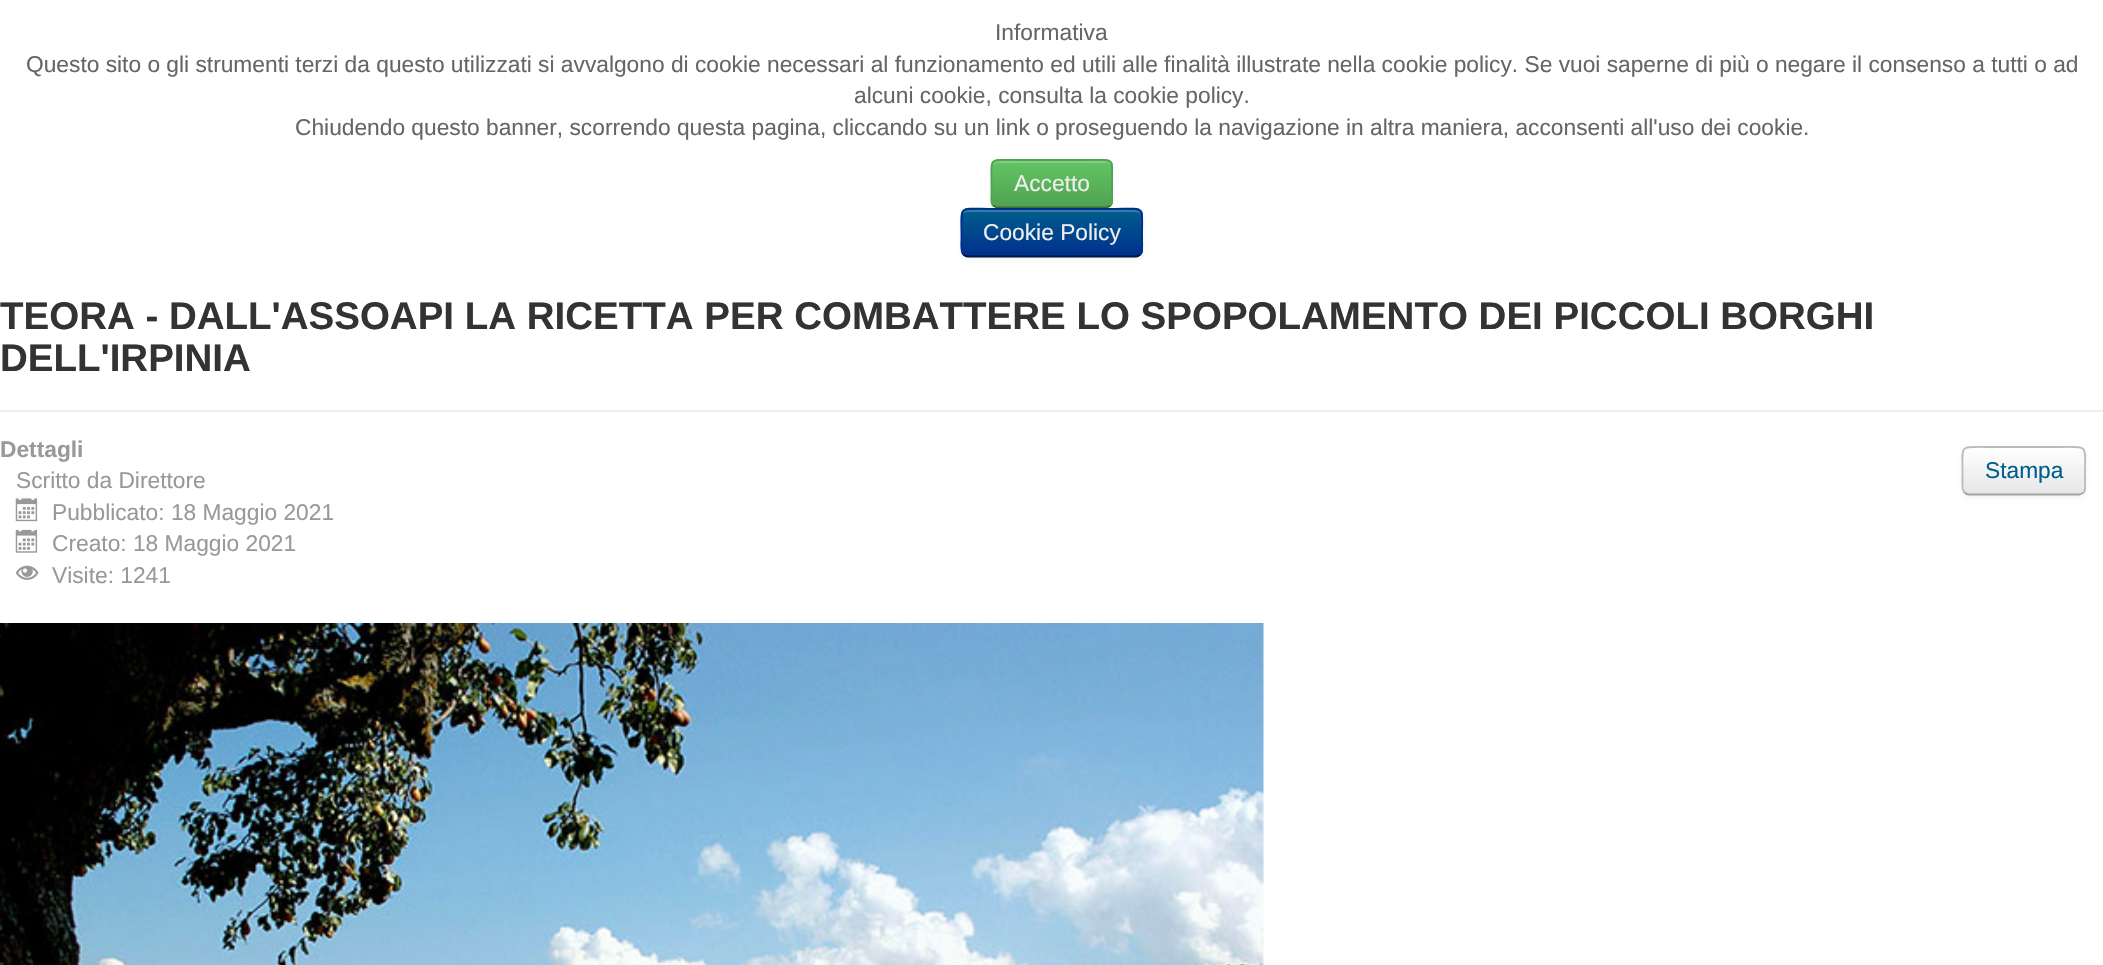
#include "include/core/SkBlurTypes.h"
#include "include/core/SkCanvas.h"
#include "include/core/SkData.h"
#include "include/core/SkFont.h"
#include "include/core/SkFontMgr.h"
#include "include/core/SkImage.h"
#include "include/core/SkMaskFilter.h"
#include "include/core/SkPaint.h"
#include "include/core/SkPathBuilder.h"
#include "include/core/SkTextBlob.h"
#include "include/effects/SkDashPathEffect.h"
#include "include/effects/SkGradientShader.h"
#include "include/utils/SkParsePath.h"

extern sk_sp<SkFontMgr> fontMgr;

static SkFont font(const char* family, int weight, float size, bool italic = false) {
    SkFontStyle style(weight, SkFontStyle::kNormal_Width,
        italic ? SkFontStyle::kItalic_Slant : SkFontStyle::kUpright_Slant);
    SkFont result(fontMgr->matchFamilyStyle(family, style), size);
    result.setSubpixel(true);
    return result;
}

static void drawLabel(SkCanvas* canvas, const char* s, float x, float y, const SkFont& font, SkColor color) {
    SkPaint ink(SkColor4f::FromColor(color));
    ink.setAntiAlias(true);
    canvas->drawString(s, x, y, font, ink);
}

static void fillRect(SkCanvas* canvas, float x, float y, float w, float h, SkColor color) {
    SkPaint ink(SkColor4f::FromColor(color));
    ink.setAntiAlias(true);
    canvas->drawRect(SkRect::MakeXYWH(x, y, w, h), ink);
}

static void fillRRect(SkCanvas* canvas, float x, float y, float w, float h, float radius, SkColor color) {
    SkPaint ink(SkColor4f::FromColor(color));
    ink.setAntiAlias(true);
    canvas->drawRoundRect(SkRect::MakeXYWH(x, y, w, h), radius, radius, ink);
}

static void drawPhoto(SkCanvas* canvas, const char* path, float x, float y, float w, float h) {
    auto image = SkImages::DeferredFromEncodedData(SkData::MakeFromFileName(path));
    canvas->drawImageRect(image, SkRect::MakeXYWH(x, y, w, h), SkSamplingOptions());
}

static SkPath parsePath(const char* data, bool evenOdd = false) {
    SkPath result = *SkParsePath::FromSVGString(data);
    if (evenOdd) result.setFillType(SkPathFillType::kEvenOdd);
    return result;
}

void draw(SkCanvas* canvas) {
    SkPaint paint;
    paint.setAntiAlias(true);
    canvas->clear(0xFFFFFFFF);
    SkFont font1 = font("Liberation Sans", 400, 22.75f);
    drawLabel(canvas, "Informativa", 995, 40, font1, 0xFF666666);
    drawLabel(canvas, "Questo sito o gli strumenti terzi da questo utilizzati si avvalgono di cookie necessari al funzionamento ed utili alle finalità illustrate nella cookie policy. Se vuoi saperne di più o negare il consenso a tutti o ad", 26, 72, font1, 0xFF666666);
    drawLabel(canvas, "alcuni cookie, consulta la cookie policy.", 854, 103, font1, 0xFF666666);
    drawLabel(canvas, "Chiudendo questo banner, scorrendo questa pagina, cliccando su un link o proseguendo la navigazione in altra maniera, acconsenti all'uso dei cookie.", 295, 135, font1, 0xFF666666);
    paint.setColor(0x0D000000);
    paint.setMaskFilter(SkMaskFilter::MakeBlur(kNormal_SkBlurStyle, 2));
    canvas->drawRoundRect(SkRect::MakeXYWH(991, 161, 122, 49), 7, 7, paint);
    paint.setMaskFilter(nullptr);
    fillRRect(canvas, 991, 159, 122, 49, 7, 0xFF5BB75B);
    canvas->save();
    canvas->clipPath(parsePath("M998 159H1106C1110 159 1113 162 1113 166V201C1113 205 1110 208 1106 208H998C994 208 991 205 991 201V166C991 162 994 159 998 159Z"), true);
    {
        const SkColor colors[] = {0xFF62C462, 0xFF51A351};
        const float stops[] = {0, 1};
        const SkPoint ends[] = {{1052, 161}, {1052, 207}};
        paint.setShader(SkGradientShader::MakeLinear(ends, colors, stops, 2, SkTileMode::kClamp));
        paint.setAlpha(255);
    }
    canvas->drawRect(SkRect::MakeXYWH(991, 161, 122, 46), paint);
    canvas->restore();
    paint.setShader(nullptr);
    paint.setColor(0x33FFFFFF);
    canvas->drawPath(parsePath("M998 163H1106C1109 163 1111 165 1111 168V166C1111 163 1109 161 1106 161H997C994 161 992 163 992 166V168C992 165 995 163 998 163Z"), paint);
    paint.setStroke(true);
    paint.setStrokeWidth(1.8f);
    paint.setColor(0xFF387038);
    canvas->drawPath(parsePath("M1110.5 205.5C1109 206.5 1107.5 207.5 1106 207.5H997.5C996 207.5 994.5 206.5 993 205.5"), paint);
    paint.setColor(0xFF51A351);
    canvas->drawPath(parsePath("M993 205.5C990.5 203 991.5 198.5 991.5 195.5V184C991.5 157 988 160 1015.5 160H1088C1115.5 160 1112 157 1112 184V195.5C1112 198.5 1113 203 1110.5 205.5"), paint);
    drawLabel(canvas, "Accetto", 1014, 191, font1, 0xFFEEEEEE);
    paint.setStroke(false);
    paint.setColor(0x0D000000);
    paint.setMaskFilter(SkMaskFilter::MakeBlur(kNormal_SkBlurStyle, 2));
    canvas->drawRoundRect(SkRect::MakeXYWH(961, 210, 182, 49), 7, 7, paint);
    paint.setMaskFilter(nullptr);
    fillRRect(canvas, 961, 208, 182, 49, 7, 0xFF004B8D);
    canvas->save();
    canvas->clipPath(parsePath("M968 208H1136C1140 208 1143 211 1143 215V250C1143 254 1140 257 1136 257H968C964 257 961 254 961 250V215C961 211 964 208 968 208Z"), true);
    {
        const SkColor colors[] = {0xFF005E8D, 0xFF002F8D};
        const float stops[] = {0, 1};
        const SkPoint ends[] = {{1052, 210}, {1052, 256}};
        paint.setShader(SkGradientShader::MakeLinear(ends, colors, stops, 2, SkTileMode::kClamp));
        paint.setAlpha(255);
    }
    canvas->drawRect(SkRect::MakeXYWH(961, 210, 182, 46), paint);
    canvas->restore();
    paint.setShader(nullptr);
    paint.setColor(0x33FFFFFF);
    canvas->drawPath(parsePath("M968 212H1136C1139 212 1141 214 1141 217V215C1141 212 1139 210 1136 210H968C966 210 963 212 963 214C964 213 966 212 968 212Z"), paint);
    paint.setStroke(true);
    paint.setColor(0xFF001641);
    canvas->drawPath(parsePath("M1140 254.5C1139 255.5 1137.5 256.5 1136 256.5H968C966 256.5 964.5 255.5 963.5 254.5"), paint);
    paint.setColor(0xFF002F8D);
    canvas->drawPath(parsePath("M963.5 254.5C960 251 961.5 242.5 961.5 238.5C961.5 202.5 956.5 209 996 209H1108C1147 209 1142 202.5 1142 238.5C1142 242.5 1143.5 251 1140 254.5"), paint);
    drawLabel(canvas, "Cookie Policy", 983, 240, font1, 0xFFEEEEEE);
    fillRect(canvas, 0, 410, 2103, 2, 0xFFEEEEEE);
    SkFont font2 = font("Liberation Sans", 700, 38.5f);
    drawLabel(canvas, "TEORA - DALL'ASSOAPI LA RICETTA PER COMBATTERE LO SPOPOLAMENTO DEI PICCOLI BORGHI", 0, 329, font2, 0xFF333333);
    drawLabel(canvas, "DELL'IRPINIA", 0, 371, font2, 0xFF333333);
    SkFont font3 = font("Liberation Sans", 700, 22.75f);
    drawLabel(canvas, "Dettagli", 0, 457, font3, 0xFF999999);
    drawLabel(canvas, "Scritto da Direttore", 16, 488, font1, 0xFF999999);
    drawPhoto(canvas, "assets/img1.png", 15, 498, 23, 24);
    drawLabel(canvas, "Pubblicato: 18 Maggio 2021", 52, 520, font1, 0xFF999999);
    drawPhoto(canvas, "assets/img2.png", 15, 529, 23, 24);
    drawLabel(canvas, "Creato: 18 Maggio 2021", 52, 551, font1, 0xFF999999);
    drawPhoto(canvas, "assets/img3.png", 15, 565, 24, 15);
    drawLabel(canvas, "Visite: 1241", 52, 583, font1, 0xFF999999);
    paint.setStroke(false);
    paint.setColor(0x0D000000);
    paint.setMaskFilter(SkMaskFilter::MakeBlur(kNormal_SkBlurStyle, 2));
    canvas->drawRoundRect(SkRect::MakeXYWH(1962, 448, 124, 49), 7, 7, paint);
    paint.setMaskFilter(nullptr);
    fillRRect(canvas, 1962, 446, 124, 49, 7, 0xFFF5F5F5);
    canvas->save();
    canvas->clipPath(parsePath("M1969 446H2079C2083 446 2086 449 2086 453V488C2086 492 2083 495 2079 495H1969C1965 495 1962 492 1962 488V453C1962 449 1965 446 1969 446Z"), true);
    {
        const SkColor colors[] = {0xFFFFFFFF, 0xFFE6E6E6};
        const float stops[] = {0, 1};
        const SkPoint ends[] = {{2024, 448}, {2024, 494}};
        paint.setShader(SkGradientShader::MakeLinear(ends, colors, stops, 2, SkTileMode::kClamp));
        paint.setAlpha(255);
    }
    canvas->drawRect(SkRect::MakeXYWH(1962, 448, 124, 46), paint);
    canvas->restore();
    paint.setStroke(true);
    paint.setShader(nullptr);
    paint.setColor(0xFFA2A2A2);
    canvas->drawPath(parsePath("M2083.5 492.5C2082 493.5 2080.5 494.5 2079 494.5H1969C1967 494.5 1965.5 493.5 1964.5 492.5"), paint);
    paint.setColor(0xFFBBBBBB);
    canvas->drawPath(parsePath("M1964.5 492.5C1962 490 1962.5 485.5 1962.5 482.5V471C1962.5 444 1959 447 1987 447H2060.5C2088.5 447 2085 444 2085 471V482.5C2085 485.5 2086 490 2083.5 492.5"), paint);
    drawLabel(canvas, "Stampa", 1985, 478, font1, 0xFF005E8D);
    drawPhoto(canvas, "assets/img4.png", 0, 623, 1264, 342);
}
